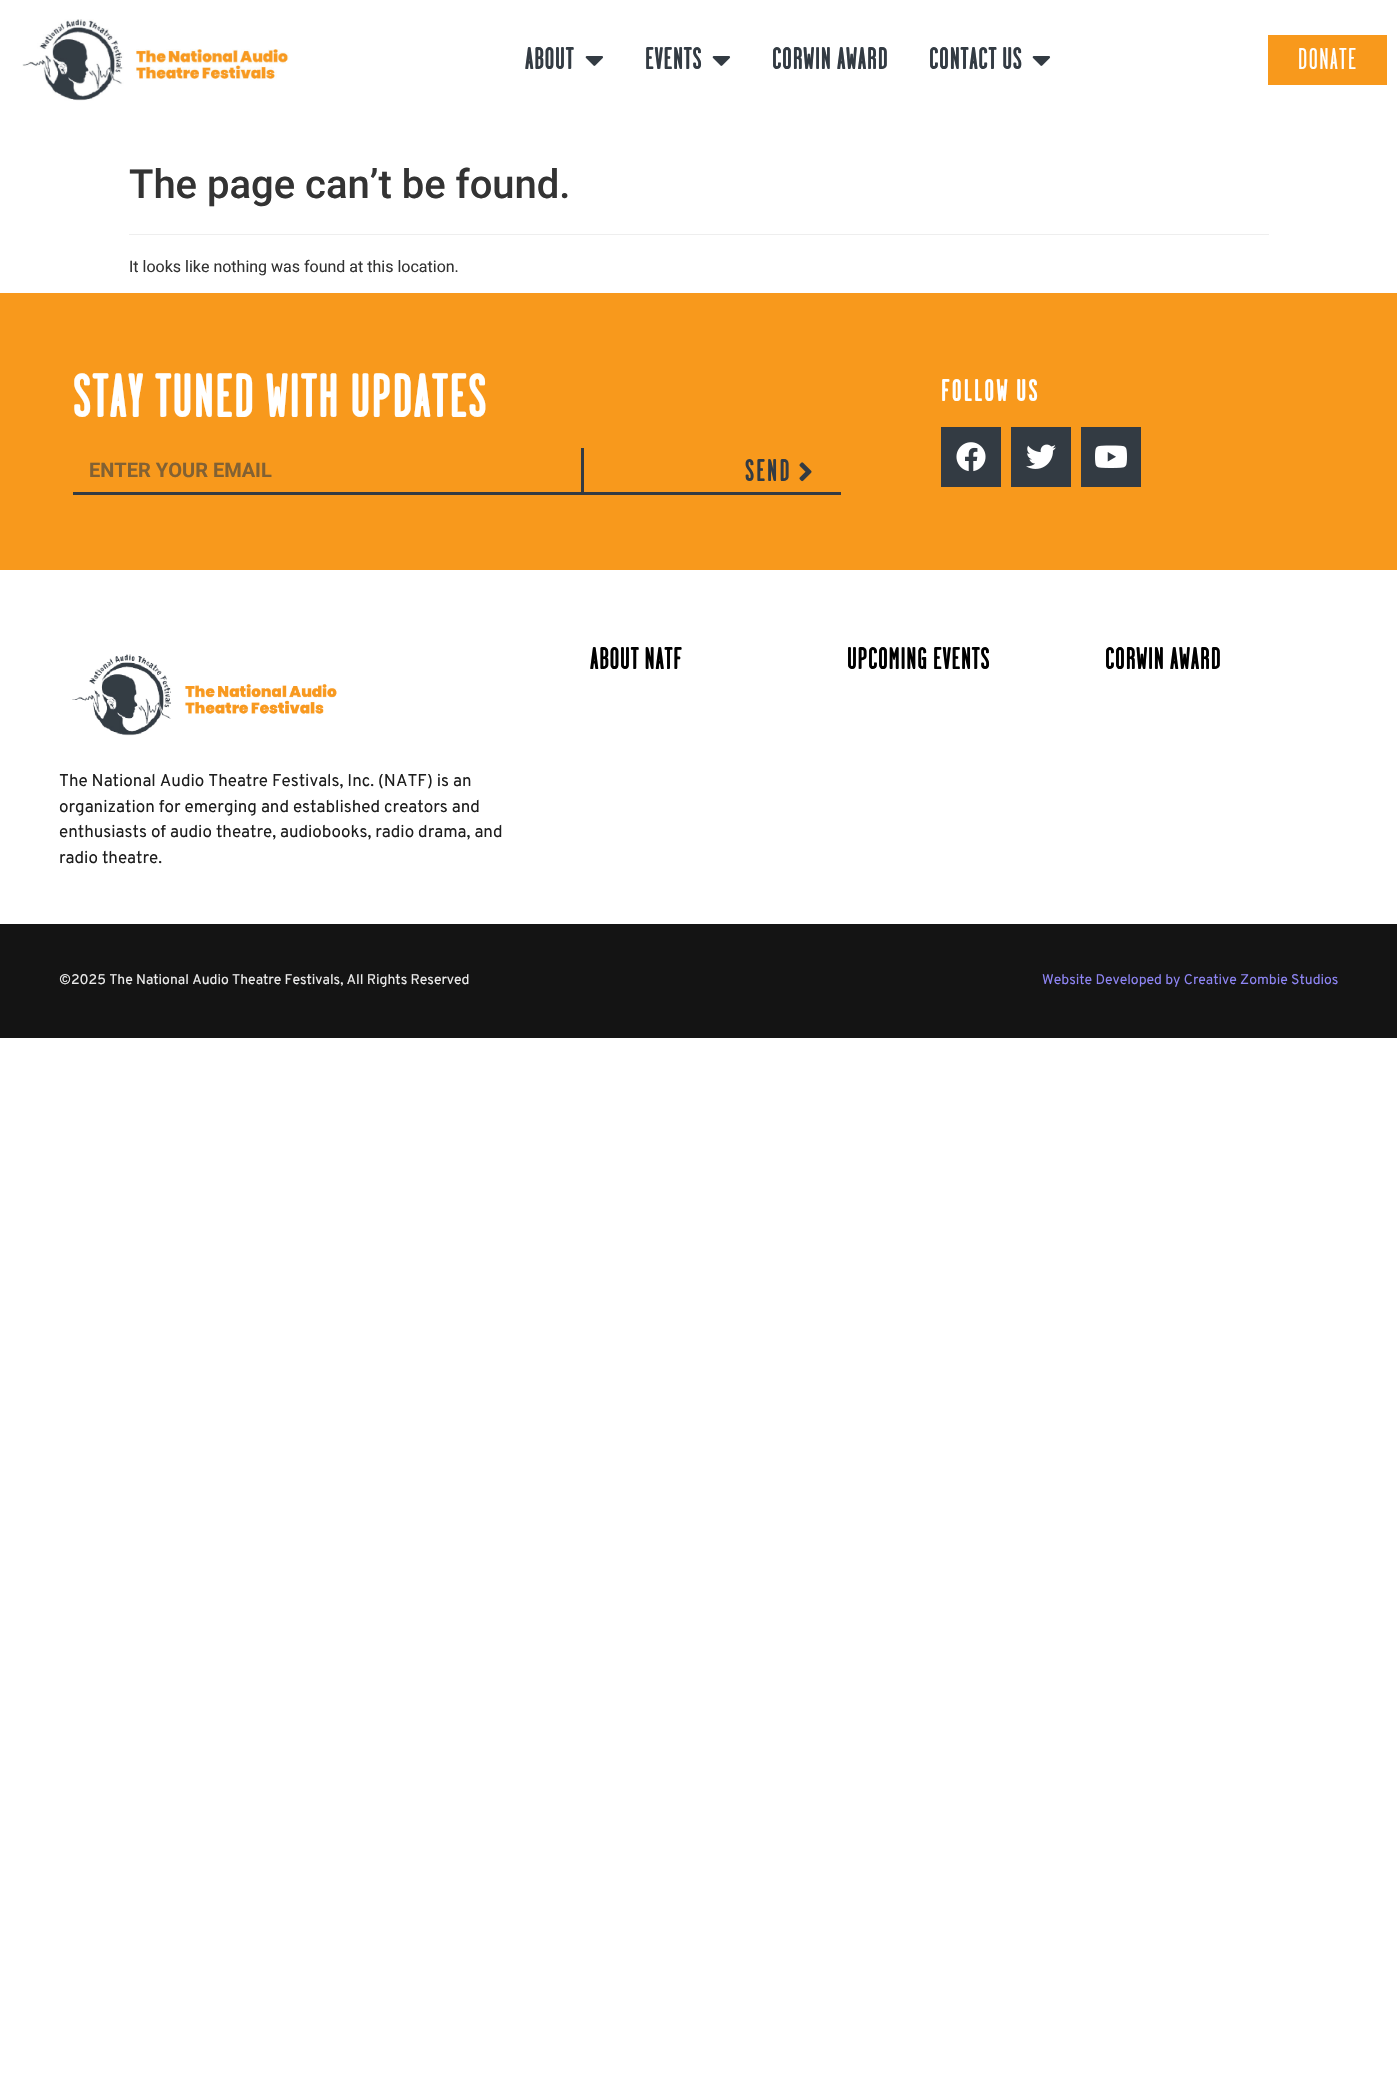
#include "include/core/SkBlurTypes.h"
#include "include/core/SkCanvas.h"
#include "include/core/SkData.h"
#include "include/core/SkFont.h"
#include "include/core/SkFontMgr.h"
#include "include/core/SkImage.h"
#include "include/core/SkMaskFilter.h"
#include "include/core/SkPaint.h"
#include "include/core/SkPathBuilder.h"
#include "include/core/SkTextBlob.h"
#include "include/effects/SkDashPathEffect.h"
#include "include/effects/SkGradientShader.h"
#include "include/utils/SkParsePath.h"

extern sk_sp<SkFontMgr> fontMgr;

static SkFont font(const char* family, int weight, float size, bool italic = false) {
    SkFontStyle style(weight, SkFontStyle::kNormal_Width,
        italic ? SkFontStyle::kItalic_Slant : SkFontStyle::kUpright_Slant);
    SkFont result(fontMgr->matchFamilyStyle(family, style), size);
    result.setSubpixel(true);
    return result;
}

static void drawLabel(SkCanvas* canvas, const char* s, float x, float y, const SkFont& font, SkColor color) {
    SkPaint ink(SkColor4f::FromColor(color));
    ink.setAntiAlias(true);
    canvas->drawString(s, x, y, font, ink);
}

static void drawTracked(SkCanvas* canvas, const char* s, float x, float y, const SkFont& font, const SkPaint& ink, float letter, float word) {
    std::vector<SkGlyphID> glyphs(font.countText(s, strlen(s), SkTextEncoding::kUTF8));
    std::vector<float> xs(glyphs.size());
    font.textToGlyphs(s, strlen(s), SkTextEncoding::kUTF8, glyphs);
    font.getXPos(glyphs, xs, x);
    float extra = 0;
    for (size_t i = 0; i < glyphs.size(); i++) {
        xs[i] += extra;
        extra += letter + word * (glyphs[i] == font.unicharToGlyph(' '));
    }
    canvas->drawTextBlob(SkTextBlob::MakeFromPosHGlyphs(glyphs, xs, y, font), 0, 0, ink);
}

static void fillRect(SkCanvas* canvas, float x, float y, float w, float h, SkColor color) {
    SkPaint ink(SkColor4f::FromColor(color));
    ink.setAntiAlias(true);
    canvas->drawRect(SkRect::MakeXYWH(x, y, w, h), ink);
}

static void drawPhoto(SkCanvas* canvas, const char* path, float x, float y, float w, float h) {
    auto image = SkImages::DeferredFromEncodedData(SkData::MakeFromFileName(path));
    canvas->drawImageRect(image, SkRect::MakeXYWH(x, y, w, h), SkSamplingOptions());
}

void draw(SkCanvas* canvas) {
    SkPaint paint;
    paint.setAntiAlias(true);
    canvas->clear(0xFFFFFFFF);
    drawPhoto(canvas, "assets/img1.png", 22, 19, 267, 82);
    SkFont font1 = font("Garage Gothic", 700, 30);
    paint.setColor(0xFF333B43);
    drawTracked(canvas, "ABOUT", 525, 69, font1, paint, 1.5f, 0);
    drawPhoto(canvas, "assets/img2.png", 585, 56, 19, 10);
    drawTracked(canvas, "EVENTS", 645, 69, font1, paint, 1.5f, 0);
    drawPhoto(canvas, "assets/img2.png", 712, 56, 19, 10);
    drawTracked(canvas, "CORWIN AWARD", 772, 69, font1, paint, 1.5f, 0);
    drawTracked(canvas, "CONTACT US", 929, 69, font1, paint, 1.5f, 0);
    drawPhoto(canvas, "assets/img2.png", 1032, 56, 19, 10);
    fillRect(canvas, 1268, 35, 119, 50, 0xFFF8991C);
    SkFont font2 = font("Garage Gothic", 400, 30);
    paint.setColor(0xFFFFFFFF);
    drawTracked(canvas, "DONATE", 1298, 69, font2, paint, 1.5f, 0);
    fillRect(canvas, 129, 234, 1140, 1, 0xFFEEEEEE);
    SkFont font3 = font("Roboto", 500, 40);
    drawLabel(canvas, "The page can’t be found.", 129, 198, font3, 0xFF333333);
    SkFont font4 = font("Roboto", 400, 16);
    drawLabel(canvas, "It looks like nothing was found at this location.", 129, 272, font4, 0xFF333333);
    fillRect(canvas, 0, 293, 1397, 277, 0xFFF8991C);
    SkFont font5 = font("Garage Gothic", 700, 60);
    drawTracked(canvas, "STAY TUNED WITH UPDATES", 73, 417, font5, paint, 3, 0);
    fillRect(canvas, 73, 492, 768, 3, 0xFF333B43);
    fillRect(canvas, 581, 448, 3, 44, 0xFF333B43);
    SkFont font6 = font("Roboto", 700, 20);
    drawLabel(canvas, "ENTER YOUR EMAIL", 89, 477, font6, 0xFF826133);
    paint.setColor(0xFF333B43);
    drawTracked(canvas, "SEND", 745, 481, font1, paint, 3, 0);
    drawPhoto(canvas, "assets/img3.png", 799, 462, 13, 20);
    paint.setColor(0xFFFFFFFF);
    drawTracked(canvas, "FOLLOW US", 941, 401, font1, paint, 3, 0);
    fillRect(canvas, 941, 427, 60, 60, 0xFF333B43);
    drawPhoto(canvas, "assets/img4.png", 956, 442, 30, 30);
    fillRect(canvas, 1011, 427, 60, 60, 0xFF333B43);
    drawPhoto(canvas, "assets/img5.png", 1026, 444, 30, 25);
    fillRect(canvas, 1081, 427, 60, 60, 0xFF333B43);
    drawPhoto(canvas, "assets/img6.png", 1095, 445, 32, 23);
    paint.setColor(0xFF000000);
    drawTracked(canvas, "ABOUT NATF", 590, 669, font1, paint, 1.5f, 0);
    drawTracked(canvas, "UPCOMING EVENTS", 847, 669, font1, paint, 1.5f, 0);
    drawTracked(canvas, "CORWIN AWARD", 1105, 669, font1, paint, 1.5f, 0);
    drawPhoto(canvas, "assets/img7.png", 72, 654, 265, 82);
    SkFont font7 = font("Overpass", 400, 17);
    drawLabel(canvas, "The National Audio Theatre Festivals, Inc. (NATF) is an", 59, 786, font7, 0xFF1E1E1E);
    drawLabel(canvas, "organization for emerging and established creators and", 59, 812, font7, 0xFF1E1E1E);
    drawLabel(canvas, "enthusiasts of audio theatre, audiobooks, radio drama, and", 59, 837, font7, 0xFF1E1E1E);
    drawLabel(canvas, "radio theatre.", 59, 863, font7, 0xFF1E1E1E);
    fillRect(canvas, 0, 924, 1397, 114, 0xFF141414);
    SkFont font8 = font("Overpass", 400, 14);
    drawLabel(canvas, "©2025 The National Audio Theatre Festivals, All Rights Reserved", 59, 984, font8, 0xFFECECEC);
    drawLabel(canvas, "Website Developed by Creative Zombie Studios", 1042, 984, font8, 0xFF8D84F3);
}
